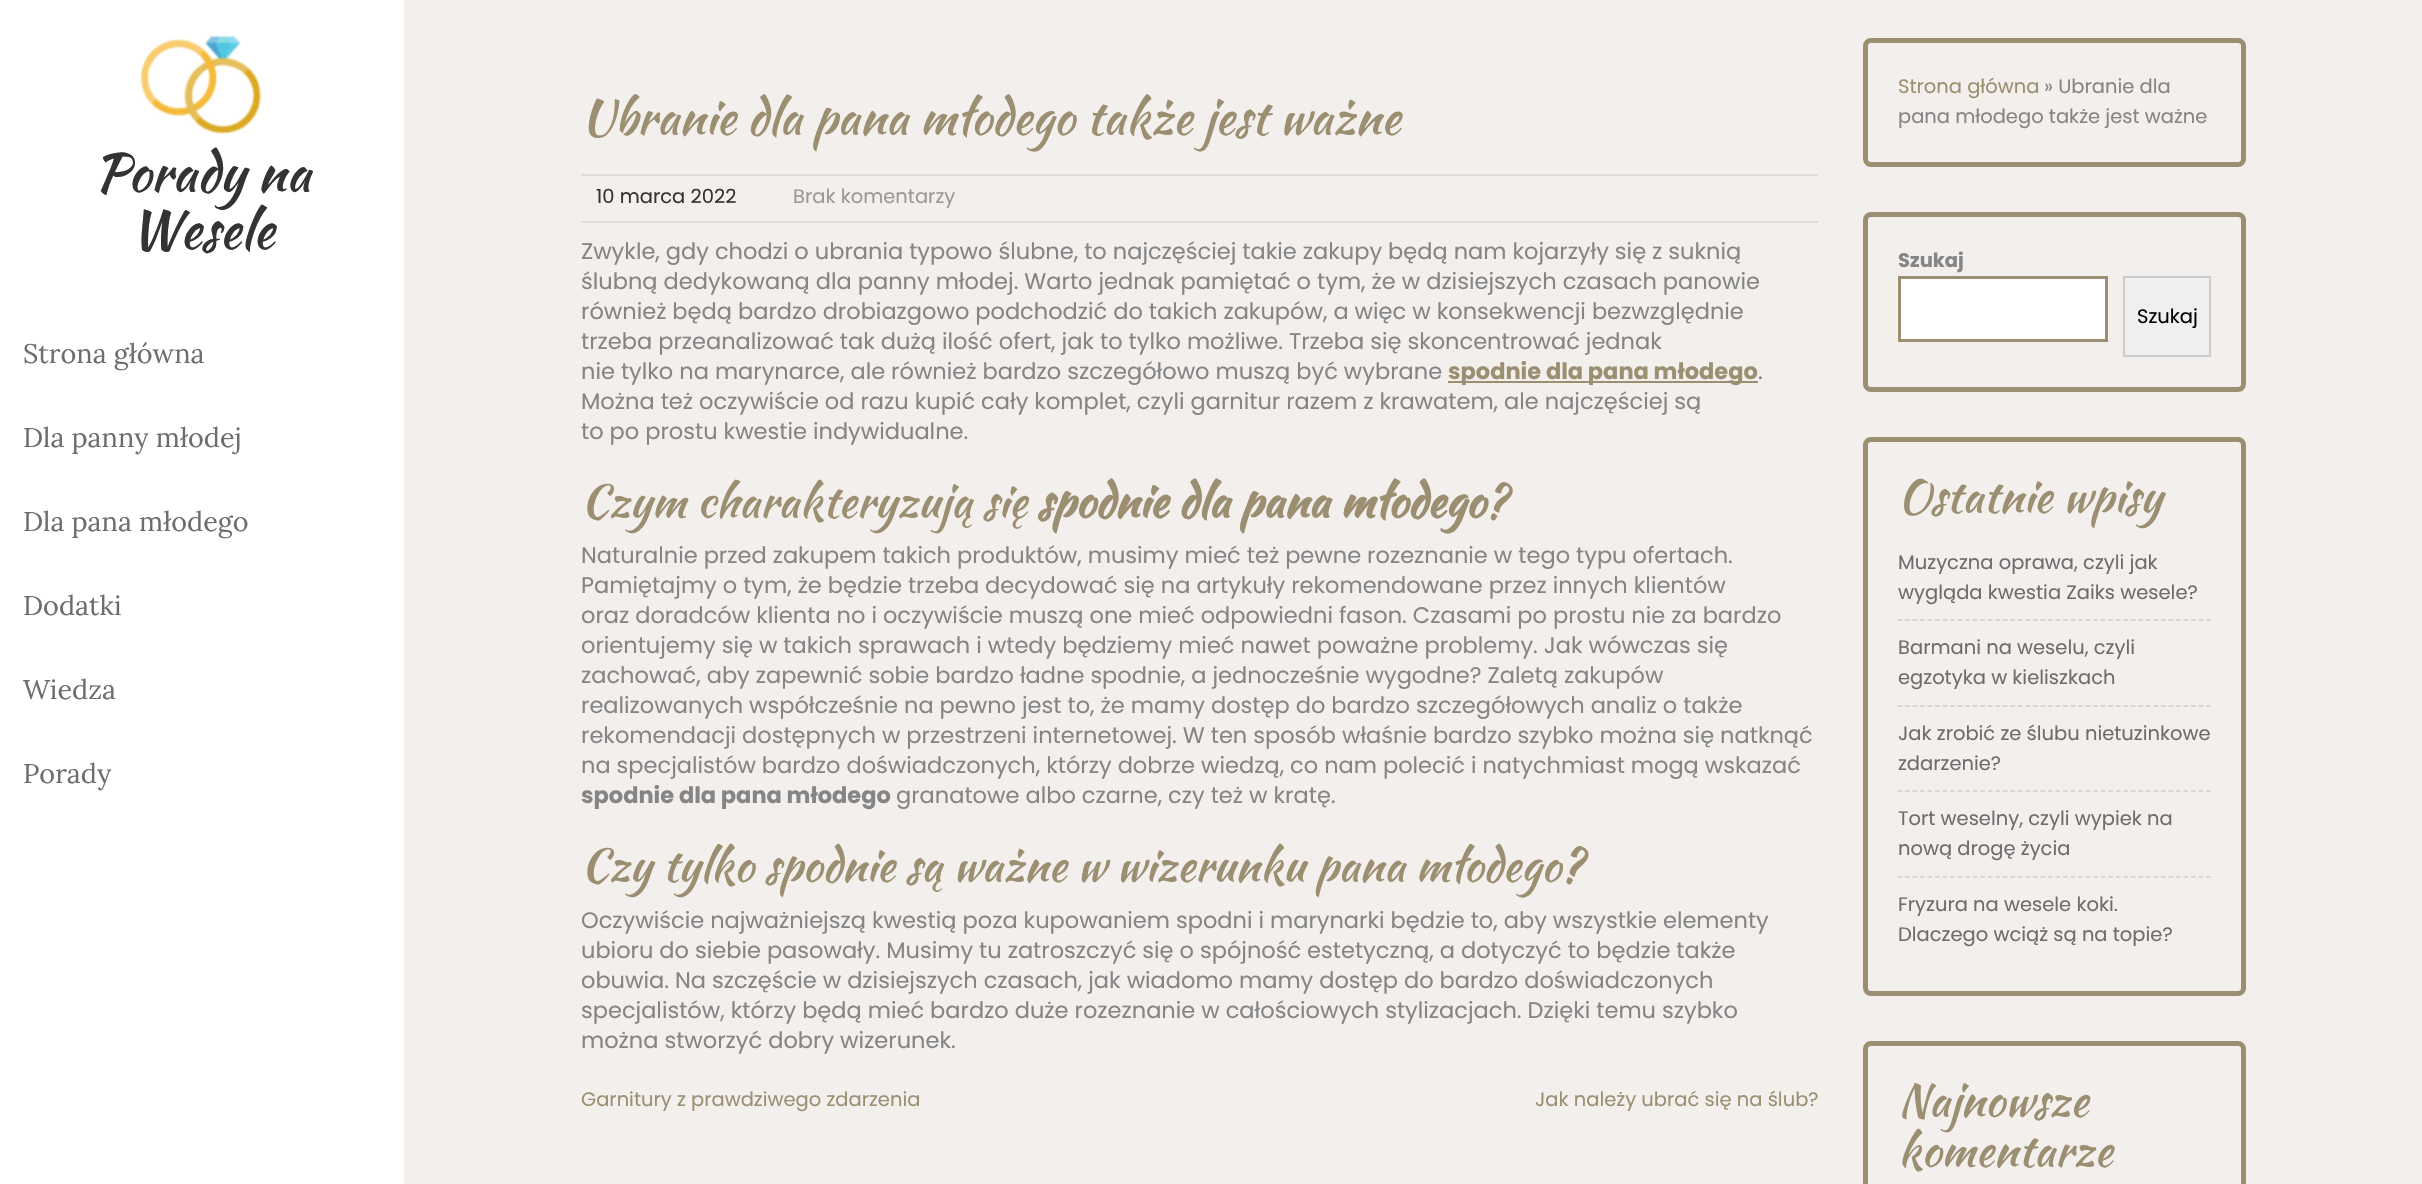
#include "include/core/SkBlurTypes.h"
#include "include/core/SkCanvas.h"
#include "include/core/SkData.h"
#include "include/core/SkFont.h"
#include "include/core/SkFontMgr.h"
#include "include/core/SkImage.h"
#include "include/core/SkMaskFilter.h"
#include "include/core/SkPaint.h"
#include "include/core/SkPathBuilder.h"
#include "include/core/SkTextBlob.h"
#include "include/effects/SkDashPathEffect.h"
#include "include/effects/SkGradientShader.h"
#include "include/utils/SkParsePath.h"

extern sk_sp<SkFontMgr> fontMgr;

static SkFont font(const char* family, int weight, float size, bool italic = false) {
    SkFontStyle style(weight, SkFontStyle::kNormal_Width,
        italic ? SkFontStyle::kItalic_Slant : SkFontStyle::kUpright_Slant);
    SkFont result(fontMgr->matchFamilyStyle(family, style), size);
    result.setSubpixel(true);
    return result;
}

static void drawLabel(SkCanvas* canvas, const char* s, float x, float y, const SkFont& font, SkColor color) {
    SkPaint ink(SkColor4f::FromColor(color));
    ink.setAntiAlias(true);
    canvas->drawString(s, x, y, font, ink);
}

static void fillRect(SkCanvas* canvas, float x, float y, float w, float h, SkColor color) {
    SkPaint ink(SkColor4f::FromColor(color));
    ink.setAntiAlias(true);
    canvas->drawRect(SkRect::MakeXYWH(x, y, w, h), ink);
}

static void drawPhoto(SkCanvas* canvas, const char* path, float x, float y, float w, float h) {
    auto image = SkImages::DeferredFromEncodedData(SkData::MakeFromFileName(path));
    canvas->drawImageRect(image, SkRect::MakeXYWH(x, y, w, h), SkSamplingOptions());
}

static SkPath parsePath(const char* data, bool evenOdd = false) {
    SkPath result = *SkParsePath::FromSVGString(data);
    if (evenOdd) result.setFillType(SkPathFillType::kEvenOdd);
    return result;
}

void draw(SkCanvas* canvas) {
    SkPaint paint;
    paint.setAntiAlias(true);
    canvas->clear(0xFFF3EFED);
    fillRect(canvas, 0, 0, 404, 1184, 0xFFFFFFFF);
    drawPhoto(canvas, "assets/img1.png", 140, 35, 122, 99);
    SkFont font1 = font("Kaushan Script", 400, 52.5f);
    drawLabel(canvas, "Porady na", 94, 191, font1, 0xFF333333);
    drawLabel(canvas, "Wesele", 130, 248, font1, 0xFF333333);
    SkFont font2 = font("Lora", 400, 27);
    drawLabel(canvas, "Strona główna", 23, 363, font2, 0xFF6D6D6D);
    drawLabel(canvas, "Dla panny młodej", 23, 447, font2, 0xFF6D6D6D);
    drawLabel(canvas, "Dla pana młodego", 23, 531, font2, 0xFF6D6D6D);
    drawLabel(canvas, "Dodatki", 23, 615, font2, 0xFF6D6D6D);
    drawLabel(canvas, "Wiedza", 23, 699, font2, 0xFF6D6D6D);
    drawLabel(canvas, "Porady", 23, 783, font2, 0xFF6D6D6D);
    SkFont font3 = font("Kaushan Script", 400, 48);
    drawLabel(canvas, "Ubranie dla pana młodego także jest ważne", 581, 134, font3, 0xFF9B8E71);
    fillRect(canvas, 581, 174, 1237, 2, 0xFFDDDDDD);
    fillRect(canvas, 581, 221, 1237, 2, 0xFFDDDDDD);
    SkFont font4 = font("Poppins", 400, 19.5f);
    drawLabel(canvas, "10 marca 2022", 596, 203, font4, 0xFF333333);
    drawLabel(canvas, "Brak komentarzy", 793, 203, font4, 0xFF999999);
    SkFont font5 = font("Poppins", 400, 22.5f);
    drawLabel(canvas, "Zwykle, gdy chodzi o ubrania typowo ślubne, to najczęściej takie zakupy będą nam kojarzyły się z suknią", 581, 259, font5, 0xFF858585);
    drawLabel(canvas, "ślubną dedykowaną dla panny młodej. Warto jednak pamiętać o tym, że w dzisiejszych czasach panowie", 581, 289, font5, 0xFF858585);
    drawLabel(canvas, "również będą bardzo drobiazgowo podchodzić do takich zakupów, a więc w konsekwencji bezwzględnie", 581, 319, font5, 0xFF858585);
    drawLabel(canvas, "trzeba przeanalizować tak dużą ilość ofert, jak to tylko możliwe. Trzeba się skoncentrować jednak", 581, 349, font5, 0xFF858585);
    drawLabel(canvas, "nie tylko na marynarce, ale również bardzo szczegółowo muszą być wybrane", 581, 379, font5, 0xFF858585);
    fillRect(canvas, 1448, 381, 310, 2, 0xFF9B8E71);
    SkFont font6 = font("Poppins", 700, 22.5f);
    drawLabel(canvas, "spodnie dla pana młodego", 1448, 379, font6, 0xFF9B8E71);
    drawLabel(canvas, ".", 1758, 379, font5, 0xFF858585);
    drawLabel(canvas, "Można też oczywiście od razu kupić cały komplet, czyli garnitur razem z krawatem, ale najczęściej są", 581, 409, font5, 0xFF858585);
    drawLabel(canvas, "to po prostu kwestie indywidualne.", 581, 439, font5, 0xFF858585);
    SkFont font7 = font("Kaushan Script", 400, 45);
    drawLabel(canvas, "Czym charakteryzują się", 581, 517, font7, 0xFF9B8E71);
    SkFont font8 = font("Kaushan Script", 700, 45);
    drawLabel(canvas, "spodnie dla pana młodego", 1037, 517, font8, 0xFF9B8E71);
    drawLabel(canvas, "?", 1485, 517, font7, 0xFF9B8E71);
    drawLabel(canvas, "Naturalnie przed zakupem takich produktów, musimy mieć też pewne rozeznanie w tego typu ofertach.", 581, 563, font5, 0xFF858585);
    drawLabel(canvas, "Pamiętajmy o tym, że będzie trzeba decydować się na artykuły rekomendowane przez innych klientów", 581, 593, font5, 0xFF858585);
    drawLabel(canvas, "oraz doradców klienta no i oczywiście muszą one mieć odpowiedni fason. Czasami po prostu nie za bardzo", 581, 623, font5, 0xFF858585);
    drawLabel(canvas, "orientujemy się w takich sprawach i wtedy będziemy mieć nawet poważne problemy. Jak wówczas się", 581, 653, font5, 0xFF858585);
    drawLabel(canvas, "zachować, aby zapewnić sobie bardzo ładne spodnie, a jednocześnie wygodne? Zaletą zakupów", 581, 683, font5, 0xFF858585);
    drawLabel(canvas, "realizowanych współcześnie na pewno jest to, że mamy dostęp do bardzo szczegółowych analiz o także", 581, 713, font5, 0xFF858585);
    drawLabel(canvas, "rekomendacji dostępnych w przestrzeni internetowej. W ten sposób właśnie bardzo szybko można się natknąć", 581, 743, font5, 0xFF858585);
    drawLabel(canvas, "na specjalistów bardzo doświadczonych, którzy dobrze wiedzą, co nam polecić i natychmiast mogą wskazać", 581, 773, font5, 0xFF858585);
    drawLabel(canvas, "spodnie dla pana młodego", 581, 803, font6, 0xFF858585);
    drawLabel(canvas, "granatowe albo czarne, czy też w kratę.", 896, 803, font5, 0xFF858585);
    drawLabel(canvas, "Czy tylko spodnie są ważne w wizerunku pana młodego?", 581, 881, font7, 0xFF9B8E71);
    drawLabel(canvas, "Oczywiście najważniejszą kwestią poza kupowaniem spodni i marynarki będzie to, aby wszystkie elementy", 581, 928, font5, 0xFF858585);
    drawLabel(canvas, "ubioru do siebie pasowały. Musimy tu zatroszczyć się o spójność estetyczną, a dotyczyć to będzie także", 581, 958, font5, 0xFF858585);
    drawLabel(canvas, "obuwia. Na szczęście w dzisiejszych czasach, jak wiadomo mamy dostęp do bardzo doświadczonych", 581, 988, font5, 0xFF858585);
    drawLabel(canvas, "specjalistów, którzy będą mieć bardzo duże rozeznanie w całościowych stylizacjach. Dzięki temu szybko", 581, 1018, font5, 0xFF858585);
    drawLabel(canvas, "można stworzyć dobry wizerunek.", 581, 1048, font5, 0xFF858585);
    drawLabel(canvas, "Garnitury z prawdziwego zdarzenia", 581, 1106, font4, 0xFF9B8E71);
    drawLabel(canvas, "Jak należy ubrać się na ślub?", 1535, 1106, font4, 0xFF9B8E71);
    paint.setStroke(true);
    paint.setStrokeWidth(5);
    paint.setColor(0xFF9B8E71);
    canvas->drawRoundRect(SkRect::MakeXYWH(1865.5f, 40.5f, 378, 124), 5.5f, 5.5f, paint);
    drawLabel(canvas, "Strona główna", 1898, 93, font4, 0xFF9B8E71);
    drawLabel(canvas, "» Ubranie dla", 2044, 93, font4, 0xFF858585);
    drawLabel(canvas, "pana młodego także jest ważne", 1898, 123, font4, 0xFF858585);
    canvas->drawRoundRect(SkRect::MakeXYWH(1865.5f, 214.5f, 378, 175), 5.5f, 5.5f, paint);
    SkFont font9 = font("Poppins", 700, 19.5f);
    drawLabel(canvas, "Szukaj", 1898, 267, font9, 0xFF858585);
    paint.setStroke(false);
    paint.setColor(0xFFFFFFFF);
    canvas->drawRect(SkRect::MakeXYWH(1899.5f, 277.5f, 207, 63), paint);
    paint.setStroke(true);
    paint.setStrokeWidth(3);
    paint.setColor(0xFF9B8E71);
    canvas->drawRect(SkRect::MakeXYWH(1899.5f, 277.5f, 207, 63), paint);
    paint.setStroke(false);
    paint.setColor(0xFFEFEFEF);
    canvas->drawRect(SkRect::MakeXYWH(2124, 277, 86, 79), paint);
    paint.setStroke(true);
    paint.setStrokeWidth(2);
    paint.setColor(0xFFCCCCCC);
    canvas->drawRect(SkRect::MakeXYWH(2124, 277, 86, 79), paint);
    drawLabel(canvas, "Szukaj", 2137, 323, font4, 0xFF000000);
    paint.setStrokeWidth(5);
    paint.setColor(0xFF9B8E71);
    canvas->drawRoundRect(SkRect::MakeXYWH(1865.5f, 439.5f, 378, 554), 5.5f, 5.5f, paint);
    drawLabel(canvas, "Ostatnie wpisy", 1898, 512, font7, 0xFF9B8E71);
    paint.setStrokeWidth(1.5f);
    paint.setColor(0xFFD0CFCF);
    paint.setPathEffect(SkDashPathEffect::Make({{4.5f, 3.03f}}, 0));
    canvas->drawPath(parsePath("M1897.5 620H2211"), paint);
    paint.setPathEffect(nullptr);
    drawLabel(canvas, "Muzyczna oprawa, czyli jak", 1898, 569, font4, 0xFF6D6D6D);
    drawLabel(canvas, "wygląda kwestia Zaiks wesele?", 1898, 599, font4, 0xFF6D6D6D);
    paint.setPathEffect(SkDashPathEffect::Make({{4.5f, 3.03f}}, 0));
    canvas->drawPath(parsePath("M1897.5 706H2211"), paint);
    paint.setPathEffect(nullptr);
    drawLabel(canvas, "Barmani na weselu, czyli", 1898, 654, font4, 0xFF6D6D6D);
    drawLabel(canvas, "egzotyka w kieliszkach", 1898, 684, font4, 0xFF6D6D6D);
    paint.setPathEffect(SkDashPathEffect::Make({{4.5f, 3.03f}}, 0));
    canvas->drawPath(parsePath("M1897.5 791H2211"), paint);
    paint.setPathEffect(nullptr);
    drawLabel(canvas, "Jak zrobić ze ślubu nietuzinkowe", 1898, 740, font4, 0xFF6D6D6D);
    drawLabel(canvas, "zdarzenie?", 1898, 770, font4, 0xFF6D6D6D);
    paint.setPathEffect(SkDashPathEffect::Make({{4.5f, 3.03f}}, 0));
    canvas->drawPath(parsePath("M1897.5 877H2211"), paint);
    paint.setPathEffect(nullptr);
    drawLabel(canvas, "Tort weselny, czyli wypiek na", 1898, 825, font4, 0xFF6D6D6D);
    drawLabel(canvas, "nową drogę życia", 1898, 855, font4, 0xFF6D6D6D);
    drawLabel(canvas, "Fryzura na wesele koki.", 1898, 911, font4, 0xFF6D6D6D);
    drawLabel(canvas, "Dlaczego wciąż są na topie?", 1898, 941, font4, 0xFF6D6D6D);
    paint.setStrokeWidth(5);
    paint.setColor(0xFF9B8E71);
    canvas->drawRoundRect(SkRect::MakeXYWH(1865.5f, 1043.5f, 378, 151), 5.5f, 5.5f, paint);
    drawLabel(canvas, "Najnowsze", 1898, 1116, font7, 0xFF9B8E71);
    drawLabel(canvas, "komentarze", 1898, 1166, font7, 0xFF9B8E71);
}
